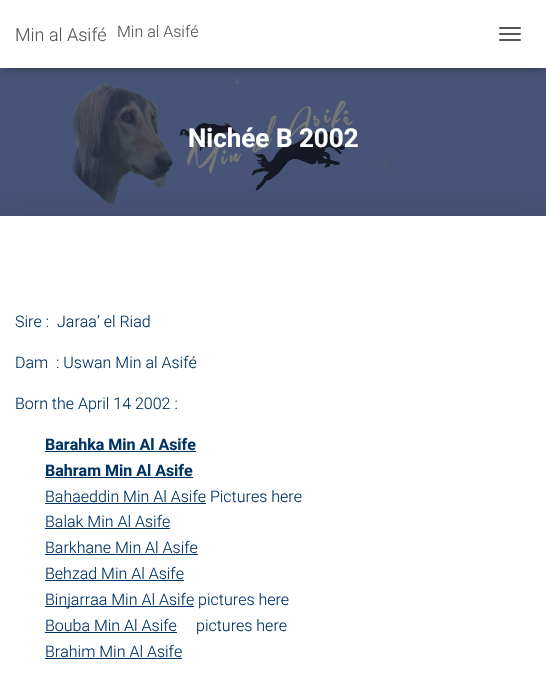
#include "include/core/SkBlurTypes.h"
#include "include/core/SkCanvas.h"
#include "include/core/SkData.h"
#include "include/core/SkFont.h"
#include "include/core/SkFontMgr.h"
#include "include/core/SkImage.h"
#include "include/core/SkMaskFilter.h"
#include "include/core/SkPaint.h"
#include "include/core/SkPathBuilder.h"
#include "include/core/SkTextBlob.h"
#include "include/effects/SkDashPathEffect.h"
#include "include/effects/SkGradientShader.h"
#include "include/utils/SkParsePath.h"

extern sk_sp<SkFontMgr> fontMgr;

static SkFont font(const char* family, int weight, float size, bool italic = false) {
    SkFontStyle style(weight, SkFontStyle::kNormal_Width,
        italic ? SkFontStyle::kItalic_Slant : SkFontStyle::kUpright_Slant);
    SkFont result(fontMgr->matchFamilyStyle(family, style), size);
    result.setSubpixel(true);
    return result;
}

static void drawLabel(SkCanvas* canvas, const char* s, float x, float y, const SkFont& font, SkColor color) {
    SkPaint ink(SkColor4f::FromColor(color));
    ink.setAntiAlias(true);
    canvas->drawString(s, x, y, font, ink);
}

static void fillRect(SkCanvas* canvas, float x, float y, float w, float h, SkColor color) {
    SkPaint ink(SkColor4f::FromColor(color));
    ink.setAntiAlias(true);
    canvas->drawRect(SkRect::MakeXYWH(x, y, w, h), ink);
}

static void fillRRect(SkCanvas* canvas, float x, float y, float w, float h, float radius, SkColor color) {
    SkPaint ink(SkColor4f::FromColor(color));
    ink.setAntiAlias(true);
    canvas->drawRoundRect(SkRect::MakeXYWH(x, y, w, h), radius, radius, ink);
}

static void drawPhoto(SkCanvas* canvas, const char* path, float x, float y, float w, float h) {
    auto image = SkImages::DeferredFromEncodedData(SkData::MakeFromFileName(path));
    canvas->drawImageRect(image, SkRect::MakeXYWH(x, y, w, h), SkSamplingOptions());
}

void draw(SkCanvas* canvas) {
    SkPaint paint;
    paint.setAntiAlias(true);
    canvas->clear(0xFFFFFFFF);
    drawPhoto(canvas, "assets/img1.png", 0, 68, 546, 148);
    paint.setColor(0x1A000000);
    paint.setMaskFilter(SkMaskFilter::MakeBlur(kNormal_SkBlurStyle, 2.5f));
    canvas->drawRect(SkRect::MakeXYWH(2, 6, 542, 64), paint);
    paint.setMaskFilter(nullptr);
    paint.setColor(0x1F000000);
    paint.setMaskFilter(SkMaskFilter::MakeBlur(kNormal_SkBlurStyle, 5));
    canvas->drawRect(SkRect::MakeXYWH(0, 1, 546, 68), paint);
    paint.setMaskFilter(nullptr);
    paint.setColor(0x6B000000);
    paint.setMaskFilter(SkMaskFilter::MakeBlur(kNormal_SkBlurStyle, 5));
    canvas->drawRect(SkRect::MakeXYWH(6, 7, 534, 56), paint);
    paint.setMaskFilter(nullptr);
    fillRect(canvas, 0, 0, 546, 68, 0xFFFFFFFF);
    SkFont font1 = font("Roboto", 300, 18);
    drawLabel(canvas, "Min al Asifé", 15, 41, font1, 0xFF555555);
    SkFont font2 = font("Roboto", 300, 16);
    drawLabel(canvas, "Min al Asifé", 117, 37, font2, 0xFF555555);
    fillRRect(canvas, 499, 27, 22, 2, 1, 0xFF555555);
    fillRRect(canvas, 499, 33, 22, 2, 1, 0xFF555555);
    fillRRect(canvas, 499, 39, 22, 2, 1, 0xFF555555);
    SkFont font3 = font("Roboto", 700, 26);
    drawLabel(canvas, "Nichée B 2002", 188, 147, font3, 0xFFFFFFFF);
    paint.setColor(0x1F000000);
    paint.setMaskFilter(SkMaskFilter::MakeBlur(kNormal_SkBlurStyle, 15));
    canvas->drawRect(SkRect::MakeXYWH(-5, 217, 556, 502), paint);
    paint.setMaskFilter(nullptr);
    fillRect(canvas, 0, 216, 546, 458, 0xFFFFFFFF);
    drawLabel(canvas, "Sire :", 15, 327, font2, 0xFF003366);
    drawLabel(canvas, "Jaraa’ el Riad", 57, 327, font2, 0xFF003366);
    drawLabel(canvas, "Dam  : Uswan Min al Asifé", 15, 368, font2, 0xFF003366);
    drawLabel(canvas, "Born the April 14 2002 :", 15, 409, font2, 0xFF003366);
    SkFont font4 = font("Roboto", 700, 16);
    drawLabel(canvas, "Barahka Min Al Asife", 45, 450, font4, 0xFF003366);
    fillRect(canvas, 45, 451, 151, 1, 0xFF003366);
    drawLabel(canvas, "Bahram Min Al Asife", 45, 476, font4, 0xFF003366);
    fillRect(canvas, 45, 477, 148, 1, 0xFF003366);
    drawLabel(canvas, "Bahaeddin Min Al Asife Pictures here", 45, 502, font2, 0xFF003366);
    fillRect(canvas, 45, 503, 161, 1, 0xFF003366);
    drawLabel(canvas, "Balak Min Al Asife", 45, 527, font2, 0xFF003366);
    fillRect(canvas, 45, 528, 125, 1, 0xFF003366);
    drawLabel(canvas, "Barkhane Min Al Asife", 45, 553, font2, 0xFF003366);
    fillRect(canvas, 45, 554, 153, 1, 0xFF003366);
    drawLabel(canvas, "Behzad Min Al Asife", 45, 579, font2, 0xFF003366);
    fillRect(canvas, 45, 580, 139, 1, 0xFF003366);
    fillRect(canvas, 45, 606, 149, 1, 0xFF003366);
    drawLabel(canvas, "Binjarraa Min Al Asife pictures here", 45, 605, font2, 0xFF003366);
    drawLabel(canvas, "Bouba Min Al Asife", 45, 631, font2, 0xFF003366);
    fillRect(canvas, 45, 632, 132, 1, 0xFF003366);
    drawLabel(canvas, "pictures here", 196, 631, font2, 0xFF003366);
    drawLabel(canvas, "Brahim Min Al Asife", 45, 657, font2, 0xFF003366);
    fillRect(canvas, 45, 658, 137, 1, 0xFF003366);
}
